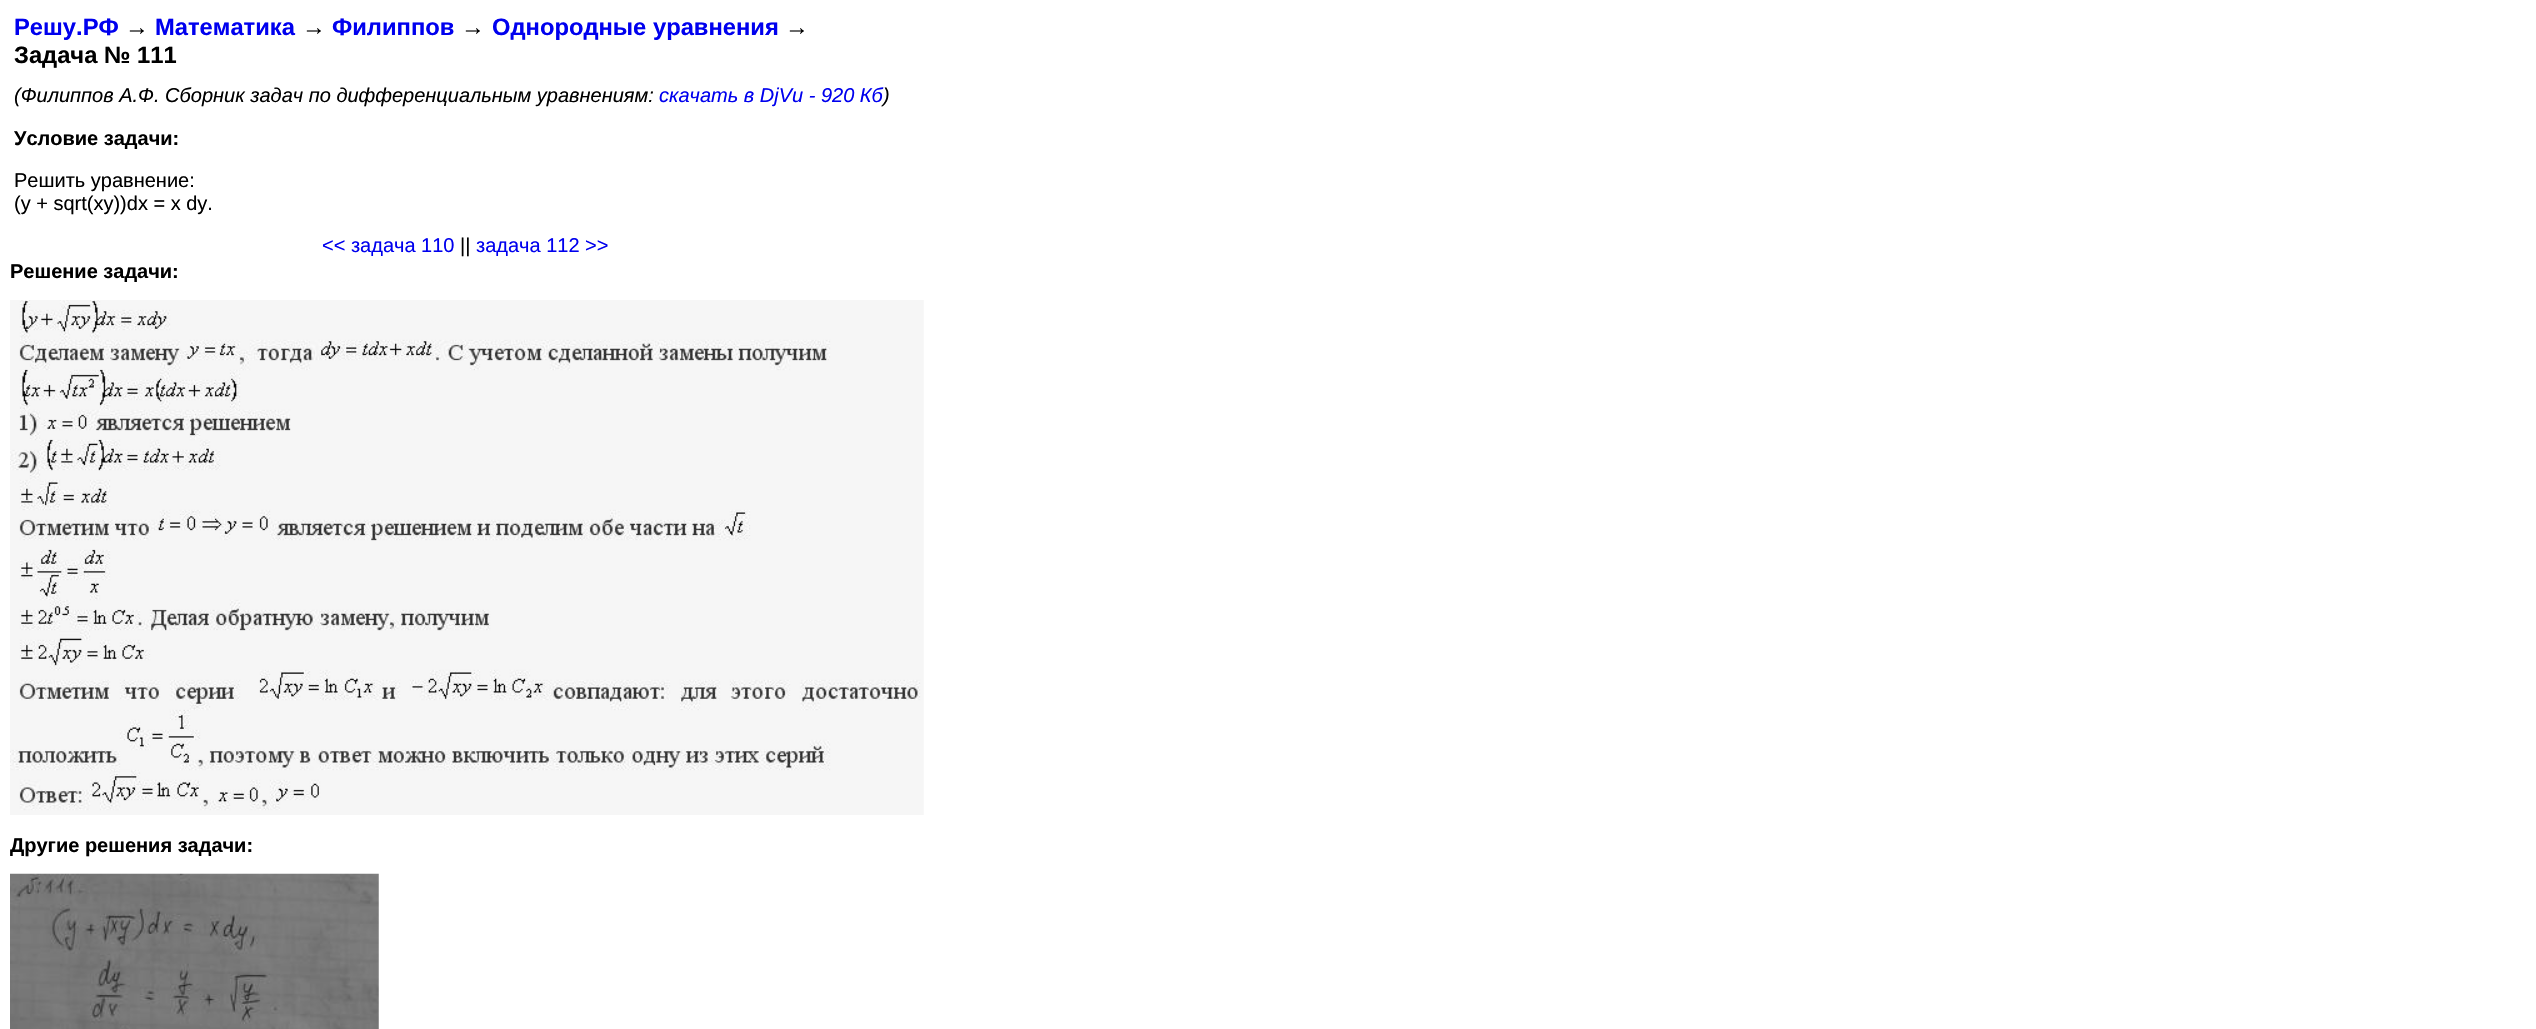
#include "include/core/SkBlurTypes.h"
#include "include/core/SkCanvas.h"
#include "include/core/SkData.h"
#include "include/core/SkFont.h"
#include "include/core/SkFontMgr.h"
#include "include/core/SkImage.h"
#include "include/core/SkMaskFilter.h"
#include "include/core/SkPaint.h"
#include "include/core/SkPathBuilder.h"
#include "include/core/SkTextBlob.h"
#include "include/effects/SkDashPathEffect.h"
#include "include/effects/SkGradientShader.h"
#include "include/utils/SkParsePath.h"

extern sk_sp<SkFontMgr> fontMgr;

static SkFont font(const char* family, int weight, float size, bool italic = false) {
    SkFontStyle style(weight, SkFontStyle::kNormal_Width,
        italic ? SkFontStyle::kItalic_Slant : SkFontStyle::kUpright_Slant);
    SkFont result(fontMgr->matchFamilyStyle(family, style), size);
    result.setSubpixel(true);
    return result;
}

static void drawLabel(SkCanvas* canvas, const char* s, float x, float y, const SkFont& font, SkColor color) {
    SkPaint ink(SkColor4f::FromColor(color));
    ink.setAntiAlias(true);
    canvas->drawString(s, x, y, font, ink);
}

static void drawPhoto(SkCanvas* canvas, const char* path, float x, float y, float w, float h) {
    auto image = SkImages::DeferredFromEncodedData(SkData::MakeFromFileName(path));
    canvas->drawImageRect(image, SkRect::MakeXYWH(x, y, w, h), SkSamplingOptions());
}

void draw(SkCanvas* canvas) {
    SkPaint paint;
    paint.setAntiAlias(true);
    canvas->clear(0xFFFFFFFF);
    SkFont font1 = font("Liberation Sans", 700, 23.75f);
    drawLabel(canvas, "Решу.РФ", 14, 35, font1, 0xFF0000EE);
    drawLabel(canvas, "→", 125, 35, font1, 0xFF000000);
    drawLabel(canvas, "Математика", 155, 35, font1, 0xFF0000EE);
    drawLabel(canvas, "→", 302, 35, font1, 0xFF000000);
    drawLabel(canvas, "Филиппов", 332, 35, font1, 0xFF0000EE);
    drawLabel(canvas, "→", 461, 35, font1, 0xFF000000);
    drawLabel(canvas, "Однородные уравнения", 492, 35, font1, 0xFF0000EE);
    drawLabel(canvas, "→", 785, 35, font1, 0xFF000000);
    drawLabel(canvas, "Задача № 111", 14, 63, font1, 0xFF000000);
    SkFont font2 = font("Liberation Sans", 400, 20, true);
    drawLabel(canvas, "(Филиппов А.Ф. Сборник задач по дифференциальным уравнениям:", 14, 102, font2, 0xFF000000);
    drawLabel(canvas, "скачать в DjVu - 920 Кб", 659, 102, font2, 0xFF0000EE);
    drawLabel(canvas, ")", 883, 102, font2, 0xFF000000);
    SkFont font3 = font("Liberation Sans", 700, 20);
    drawLabel(canvas, "Условие задачи:", 14, 145, font3, 0xFF000000);
    SkFont font4 = font("Liberation Sans", 400, 20);
    drawLabel(canvas, "Решить уравнение:", 14, 187, font4, 0xFF000000);
    drawLabel(canvas, "(y + sqrt(xy))dx = x dy.", 14, 210, font4, 0xFF000000);
    drawLabel(canvas, "<< задача 110", 322, 252, font4, 0xFF0000EE);
    drawLabel(canvas, "||", 460, 252, font4, 0xFF000000);
    drawLabel(canvas, "задача 112 >>", 476, 252, font4, 0xFF0000EE);
    drawLabel(canvas, "Решение задачи:", 10, 278, font3, 0xFF000000);
    drawPhoto(canvas, "assets/img1.png", 10, 300, 914, 515);
    drawLabel(canvas, "Другие решения задачи:", 10, 852, font3, 0xFF000000);
    drawPhoto(canvas, "assets/img2.png", 10, 873, 369, 156);
}
